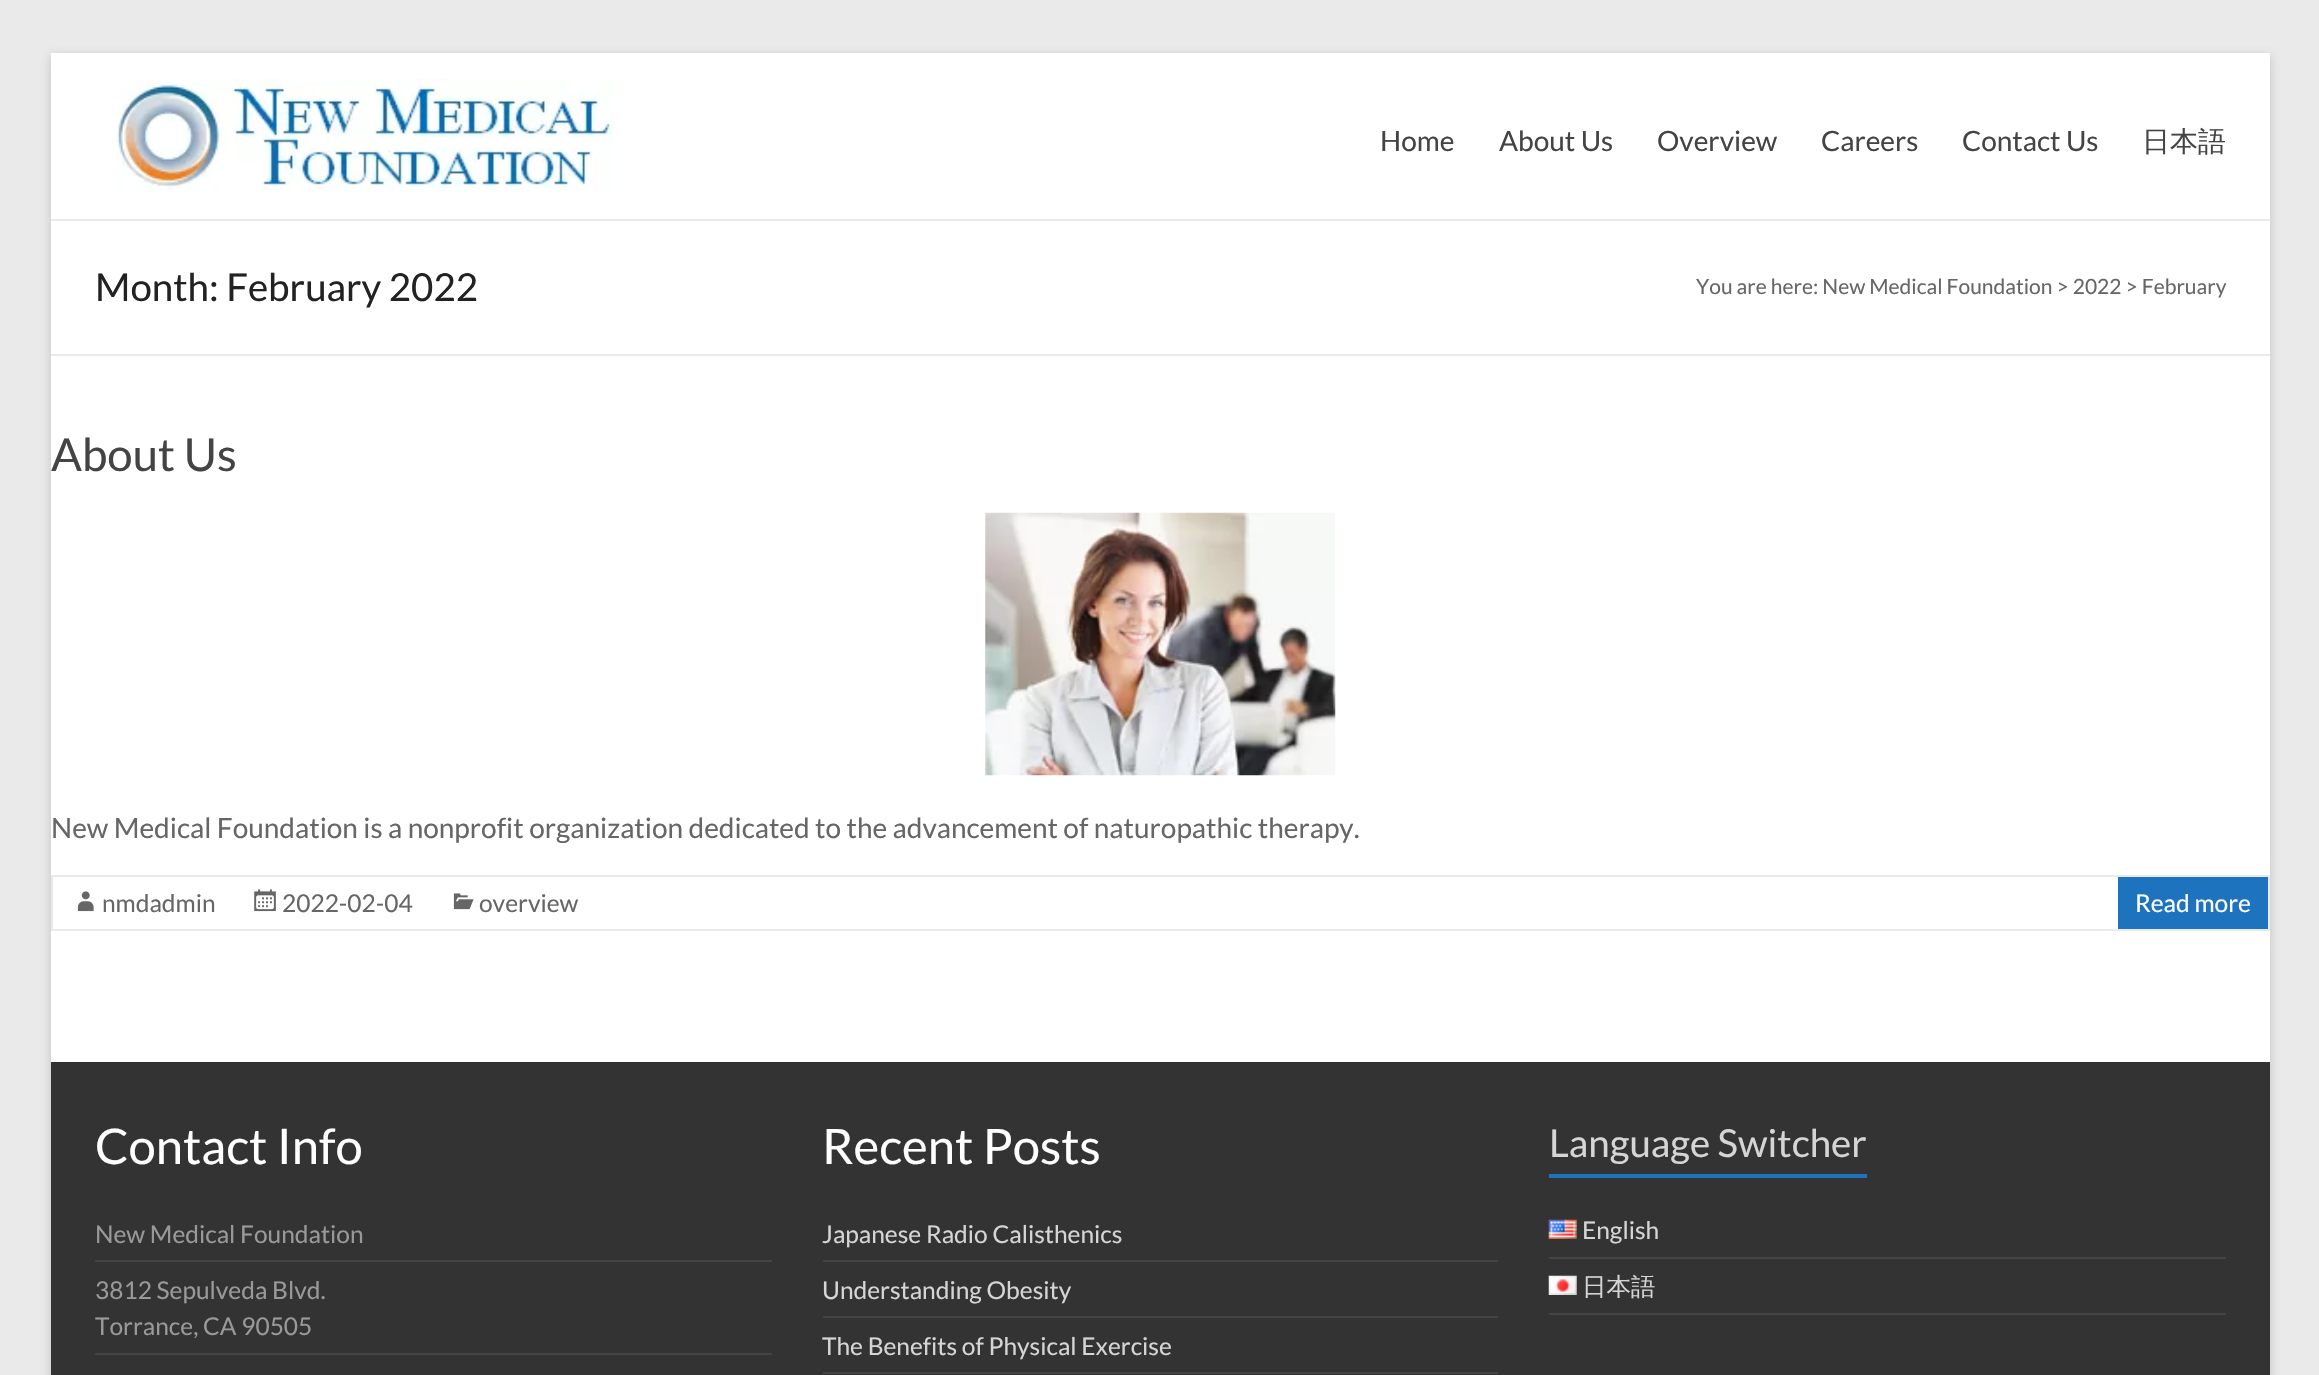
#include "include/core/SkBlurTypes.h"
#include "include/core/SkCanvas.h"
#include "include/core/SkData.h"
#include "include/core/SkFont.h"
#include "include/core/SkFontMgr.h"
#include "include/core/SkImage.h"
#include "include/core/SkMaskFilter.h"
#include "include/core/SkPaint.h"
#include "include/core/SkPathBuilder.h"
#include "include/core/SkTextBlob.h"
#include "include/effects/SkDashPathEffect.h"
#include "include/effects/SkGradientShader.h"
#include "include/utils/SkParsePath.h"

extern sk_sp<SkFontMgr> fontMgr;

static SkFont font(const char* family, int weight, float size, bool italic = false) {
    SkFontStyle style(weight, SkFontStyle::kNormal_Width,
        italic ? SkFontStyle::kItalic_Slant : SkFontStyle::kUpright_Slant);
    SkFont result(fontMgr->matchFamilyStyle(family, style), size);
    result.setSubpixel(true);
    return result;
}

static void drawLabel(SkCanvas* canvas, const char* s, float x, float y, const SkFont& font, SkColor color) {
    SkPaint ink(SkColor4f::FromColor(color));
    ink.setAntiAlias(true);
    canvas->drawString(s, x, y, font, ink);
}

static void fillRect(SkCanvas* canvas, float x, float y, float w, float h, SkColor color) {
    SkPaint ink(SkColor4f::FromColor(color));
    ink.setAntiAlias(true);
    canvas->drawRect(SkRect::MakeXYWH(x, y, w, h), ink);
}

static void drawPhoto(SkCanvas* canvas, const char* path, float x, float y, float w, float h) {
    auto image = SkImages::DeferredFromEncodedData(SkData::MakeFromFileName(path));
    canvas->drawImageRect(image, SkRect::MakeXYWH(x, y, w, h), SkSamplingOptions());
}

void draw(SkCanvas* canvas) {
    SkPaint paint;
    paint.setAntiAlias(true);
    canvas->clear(0xFFEAEAEA);
    paint.setColor(0x4D646464);
    paint.setMaskFilter(SkMaskFilter::MakeBlur(kNormal_SkBlurStyle, 5));
    canvas->drawRect(SkRect::MakeXYWH(51, 56, 2219, 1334), paint);
    paint.setMaskFilter(nullptr);
    fillRect(canvas, 51, 53, 2219, 1009, 0xFFFFFFFF);
    fillRect(canvas, 51, 219, 2219, 2, 0xFFEAEAEA);
    drawPhoto(canvas, "assets/img1.png", 116, 78, 498, 114);
    SkFont font1 = font("Lato", 400, 28);
    drawLabel(canvas, "Home", 1380, 151, font1, 0xFF444444);
    drawLabel(canvas, "About Us", 1499, 151, font1, 0xFF444444);
    drawLabel(canvas, "Overview", 1657, 151, font1, 0xFF444444);
    drawLabel(canvas, "Careers", 1821, 151, font1, 0xFF444444);
    drawLabel(canvas, "Contact Us", 1962, 151, font1, 0xFF444444);
    SkFont font2 = font("WenQuanYi Zen Hei", 500, 28);
    drawLabel(canvas, "日本語", 2142, 151, font2, 0xFF444444);
    fillRect(canvas, 51, 354, 2219, 2, 0xFFEAEAEA);
    SkFont font3 = font("Lato", 400, 38.5f);
    drawLabel(canvas, "Month: February 2022", 95, 301, font3, 0xFF222222);
    SkFont font4 = font("Lato", 400, 21);
    drawLabel(canvas, "You are here: New Medical Foundation > 2022 > February", 1696, 294, font4, 0xFF666666);
    SkFont font5 = font("Lato", 400, 45.5f);
    drawLabel(canvas, "About Us", 51, 471, font5, 0xFF444444);
    drawPhoto(canvas, "assets/img2.png", 985, 512, 351, 264);
    drawLabel(canvas, "New Medical Foundation is a nonprofit organization dedicated to the advancement of naturopathic therapy.", 51, 838, font1, 0xFF666666);
    paint.setStroke(true);
    paint.setStrokeWidth(2);
    paint.setColor(0xFFEAEAEA);
    canvas->drawRect(SkRect::MakeXYWH(52, 876, 2217, 54), paint);
    drawPhoto(canvas, "assets/img3.png", 77, 891, 17, 21);
    SkFont font6 = font("Lato", 400, 24.5f);
    drawLabel(canvas, "nmdadmin", 102, 912, font6, 0xFF666666);
    drawPhoto(canvas, "assets/img4.png", 254, 889, 22, 23);
    drawLabel(canvas, "2022-02-04", 282, 912, font6, 0xFF666666);
    drawPhoto(canvas, "assets/img5.png", 453, 893, 21, 17);
    drawLabel(canvas, "overview", 479, 912, font6, 0xFF666666);
    fillRect(canvas, 2118, 877, 150, 52, 0xFF1E73BE);
    drawLabel(canvas, "Read more", 2135, 912, font6, 0xFFFFFFFF);
    fillRect(canvas, 51, 1062, 2219, 313, 0xFF333333);
    SkFont font7 = font("Lato", 400, 49);
    drawLabel(canvas, "Contact Info", 95, 1164, font7, 0xFFFFFFFF);
    fillRect(canvas, 95, 1260, 677, 2, 0xFF444444);
    drawLabel(canvas, "New Medical Foundation", 95, 1243, font6, 0xFF999999);
    fillRect(canvas, 95, 1353, 677, 2, 0xFF444444);
    drawLabel(canvas, "3812 Sepulveda Blvd.", 95, 1299, font6, 0xFF999999);
    drawLabel(canvas, "Torrance, CA 90505", 95, 1335, font6, 0xFF999999);
    drawLabel(canvas, "Recent Posts", 822, 1164, font7, 0xFFFFFFFF);
    fillRect(canvas, 823, 1260, 675, 2, 0xFF444444);
    drawLabel(canvas, "Japanese Radio Calisthenics", 822, 1243, font6, 0xFFD5D5D5);
    fillRect(canvas, 823, 1316, 675, 2, 0xFF444444);
    drawLabel(canvas, "Understanding Obesity", 822, 1299, font6, 0xFFD5D5D5);
    fillRect(canvas, 823, 1372, 675, 2, 0xFF444444);
    drawLabel(canvas, "The Benefits of Physical Exercise", 822, 1355, font6, 0xFFD5D5D5);
    drawLabel(canvas, "Language Switcher", 1549, 1157, font3, 0xFFD5D5D5);
    fillRect(canvas, 1549, 1174, 318, 4, 0xFF1E73BE);
    fillRect(canvas, 1549, 1257, 677, 2, 0xFF444444);
    drawPhoto(canvas, "assets/img6.png", 1548, 1219, 29, 20);
    drawLabel(canvas, "English", 1582, 1239, font6, 0xFFD5D5D5);
    fillRect(canvas, 1549, 1313, 677, 2, 0xFF444444);
    drawPhoto(canvas, "assets/img7.png", 1548, 1275, 29, 20);
    SkFont font8 = font("WenQuanYi Zen Hei", 500, 24.5f);
    drawLabel(canvas, "日本語", 1582, 1295, font8, 0xFFD5D5D5);
}
